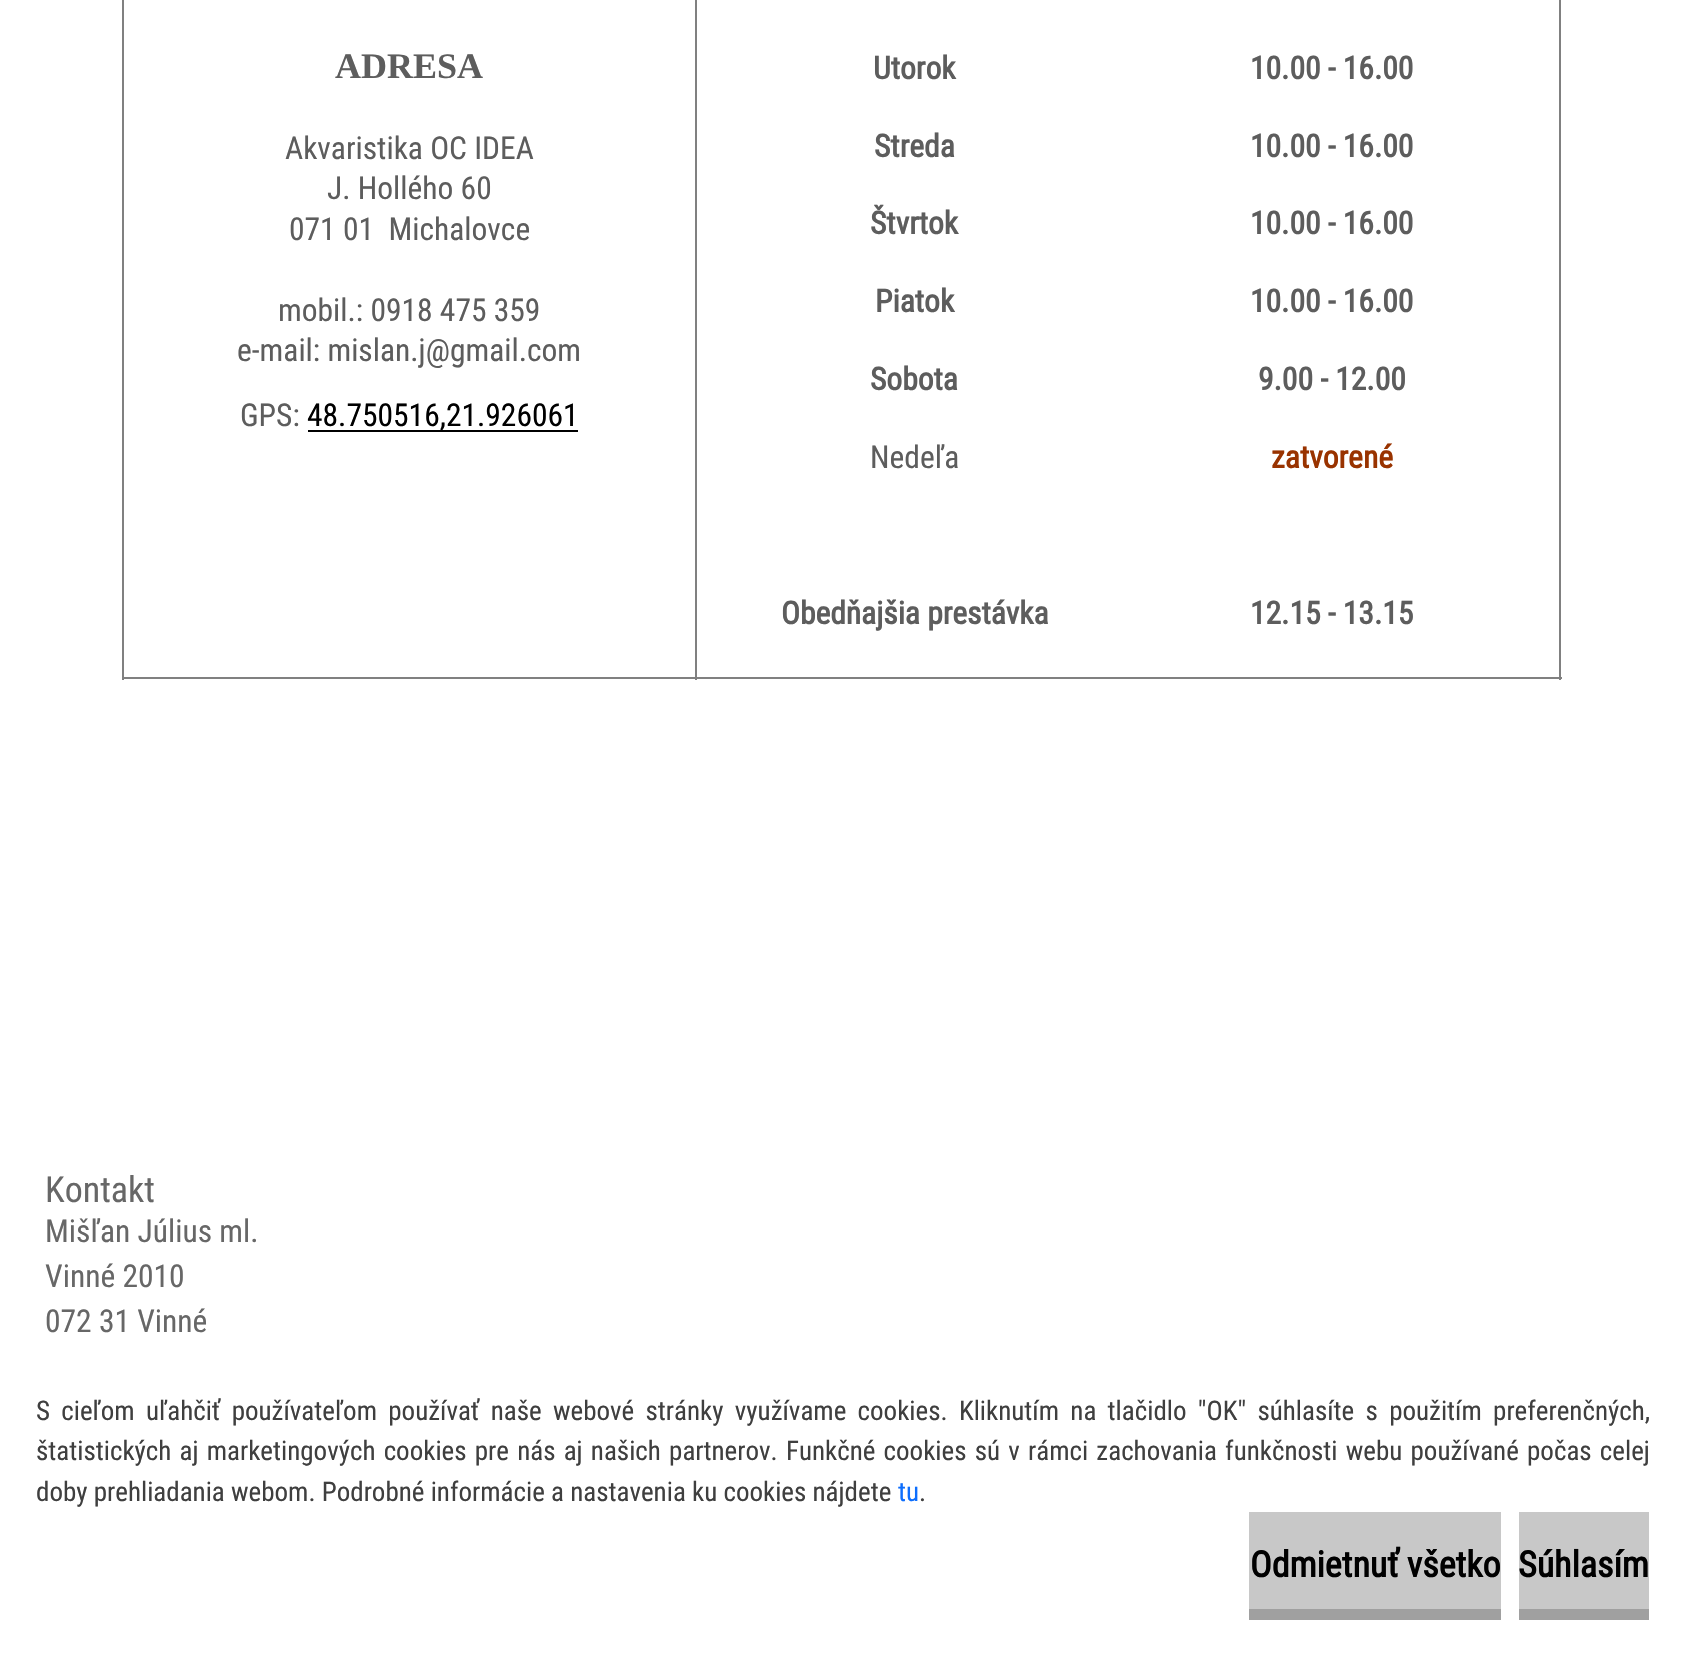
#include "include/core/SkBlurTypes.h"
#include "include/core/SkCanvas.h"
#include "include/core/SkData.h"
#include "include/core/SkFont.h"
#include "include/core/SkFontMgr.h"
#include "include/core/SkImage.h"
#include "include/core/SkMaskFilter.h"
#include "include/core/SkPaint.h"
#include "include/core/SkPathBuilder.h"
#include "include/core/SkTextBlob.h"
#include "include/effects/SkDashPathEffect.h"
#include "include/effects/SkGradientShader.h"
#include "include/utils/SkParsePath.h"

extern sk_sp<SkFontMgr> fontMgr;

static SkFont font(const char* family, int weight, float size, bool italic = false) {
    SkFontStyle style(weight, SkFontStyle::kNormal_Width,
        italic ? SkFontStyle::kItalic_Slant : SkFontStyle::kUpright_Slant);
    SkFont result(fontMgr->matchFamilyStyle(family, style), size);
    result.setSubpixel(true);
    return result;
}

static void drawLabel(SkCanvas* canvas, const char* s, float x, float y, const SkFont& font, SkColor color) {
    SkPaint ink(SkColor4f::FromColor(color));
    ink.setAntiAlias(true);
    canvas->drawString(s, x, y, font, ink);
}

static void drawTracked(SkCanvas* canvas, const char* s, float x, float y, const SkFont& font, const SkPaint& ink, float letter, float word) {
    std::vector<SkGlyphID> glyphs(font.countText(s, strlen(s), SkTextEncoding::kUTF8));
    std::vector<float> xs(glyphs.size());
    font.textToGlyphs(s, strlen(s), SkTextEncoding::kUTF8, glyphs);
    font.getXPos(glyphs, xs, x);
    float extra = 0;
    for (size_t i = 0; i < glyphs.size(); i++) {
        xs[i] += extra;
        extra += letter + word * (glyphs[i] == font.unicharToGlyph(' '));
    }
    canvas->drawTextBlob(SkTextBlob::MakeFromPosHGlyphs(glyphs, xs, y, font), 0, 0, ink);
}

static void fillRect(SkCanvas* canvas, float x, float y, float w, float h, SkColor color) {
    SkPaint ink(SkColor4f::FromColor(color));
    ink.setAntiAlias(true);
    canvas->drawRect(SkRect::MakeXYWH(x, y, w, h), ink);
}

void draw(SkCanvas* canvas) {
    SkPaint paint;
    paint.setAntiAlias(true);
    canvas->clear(0xFFFFFFFF);
    fillRect(canvas, 1559, 0, 2, 680, 0xFF808080);
    fillRect(canvas, 122, 677, 1440, 2, 0xFF808080);
    fillRect(canvas, 122, 0, 2, 680, 0xFF808080);
    SkFont font1 = font("Liberation Serif", 700, 36);
    drawLabel(canvas, "ADRESA", 335, 78, font1, 0xFF5D5D5D);
    SkFont font2 = font("Roboto Condensed", 400, 31.5f);
    drawLabel(canvas, "Akvaristika OC IDEA", 285, 159, font2, 0xFF5D5D5D);
    drawLabel(canvas, "J. Hollého 60", 327, 199, font2, 0xFF5D5D5D);
    drawLabel(canvas, "071 01  Michalovce", 289, 240, font2, 0xFF5D5D5D);
    drawLabel(canvas, "mobil.: 0918 475 359", 278, 321, font2, 0xFF5D5D5D);
    drawLabel(canvas, "e-mail: mislan.j@gmail.com", 237, 361, font2, 0xFF5D5D5D);
    drawLabel(canvas, "GPS:", 240, 426, font2, 0xFF5D5D5D);
    fillRect(canvas, 308, 430, 270, 2, 0xFF000000);
    drawLabel(canvas, "48.750516,21.926061", 307, 426, font2, 0xFF000000);
    fillRect(canvas, 695, 0, 2, 680, 0xFF808080);
    SkFont font3 = font("Roboto Condensed", 700, 31.5f);
    drawLabel(canvas, "Utorok", 873, 79, font3, 0xFF5D5D5D);
    drawLabel(canvas, "10.00 - 16.00", 1250, 79, font3, 0xFF5D5D5D);
    drawLabel(canvas, "Streda", 874, 157, font3, 0xFF5D5D5D);
    drawLabel(canvas, "10.00 - 16.00", 1250, 157, font3, 0xFF5D5D5D);
    drawLabel(canvas, "Štvrtok", 870, 234, font3, 0xFF5D5D5D);
    drawLabel(canvas, "10.00 - 16.00", 1250, 234, font3, 0xFF5D5D5D);
    drawLabel(canvas, "Piatok", 875, 312, font3, 0xFF5D5D5D);
    drawLabel(canvas, "10.00 - 16.00", 1250, 312, font3, 0xFF5D5D5D);
    drawLabel(canvas, "Sobota", 870, 390, font3, 0xFF5D5D5D);
    drawLabel(canvas, "9.00 - 12.00", 1258, 390, font3, 0xFF5D5D5D);
    drawLabel(canvas, "Nedeľa", 870, 468, font2, 0xFF5D5D5D);
    drawLabel(canvas, "zatvorené", 1271, 468, font3, 0xFF993300);
    drawLabel(canvas, "Obedňajšia prestávka", 781, 624, font3, 0xFF5D5D5D);
    drawLabel(canvas, "12.15 - 13.15", 1250, 624, font3, 0xFF5D5D5D);
    SkFont font4 = font("Roboto Condensed", 400, 36);
    drawLabel(canvas, "Kontakt", 45, 1202, font4, 0xFF676767);
    drawLabel(canvas, "Mišľan Július ml.", 45, 1242, font2, 0xFF676767);
    drawLabel(canvas, "Vinné 2010", 45, 1287, font2, 0xFF676767);
    drawLabel(canvas, "072 31 Vinné", 45, 1332, font2, 0xFF676767);
    SkFont font5 = font("Roboto Condensed", 400, 27);
    paint.setColor(0xFF3F3F3F);
    drawTracked(canvas, "S cieľom uľahčiť používateľom používať naše webové stránky využívame cookies. Kliknutím na tlačidlo \"OK\" súhlasíte s použitím preferenčných,", 36, 1420, font5, paint, 0, 5.1f);
    drawTracked(canvas, "štatistických aj marketingových cookies pre nás aj našich partnerov. Funkčné cookies sú v rámci zachovania funkčnosti webu používané počas celej", 36, 1460, font5, paint, 0, 2);
    drawLabel(canvas, "doby prehliadania webom. Podrobné informácie a nastavenia ku cookies nájdete", 36, 1501, font5, 0xFF3F3F3F);
    drawLabel(canvas, "tu", 898, 1501, font5, 0xFF0D6EFD);
    drawLabel(canvas, ".", 919, 1501, font5, 0xFF3F3F3F);
    fillRect(canvas, 1249, 1512, 252, 97, 0xFFC8C8C8);
    fillRect(canvas, 1249, 1609, 252, 11, 0xFFA0A0A0);
    SkFont font6 = font("Roboto Condensed", 700, 36);
    drawLabel(canvas, "Odmietnuť všetko", 1250, 1577, font6, 0xFF000000);
    fillRect(canvas, 1519, 1512, 130, 97, 0xFFC8C8C8);
    fillRect(canvas, 1519, 1609, 130, 11, 0xFFA0A0A0);
    drawLabel(canvas, "Súhlasím", 1518, 1577, font6, 0xFF000000);
}
